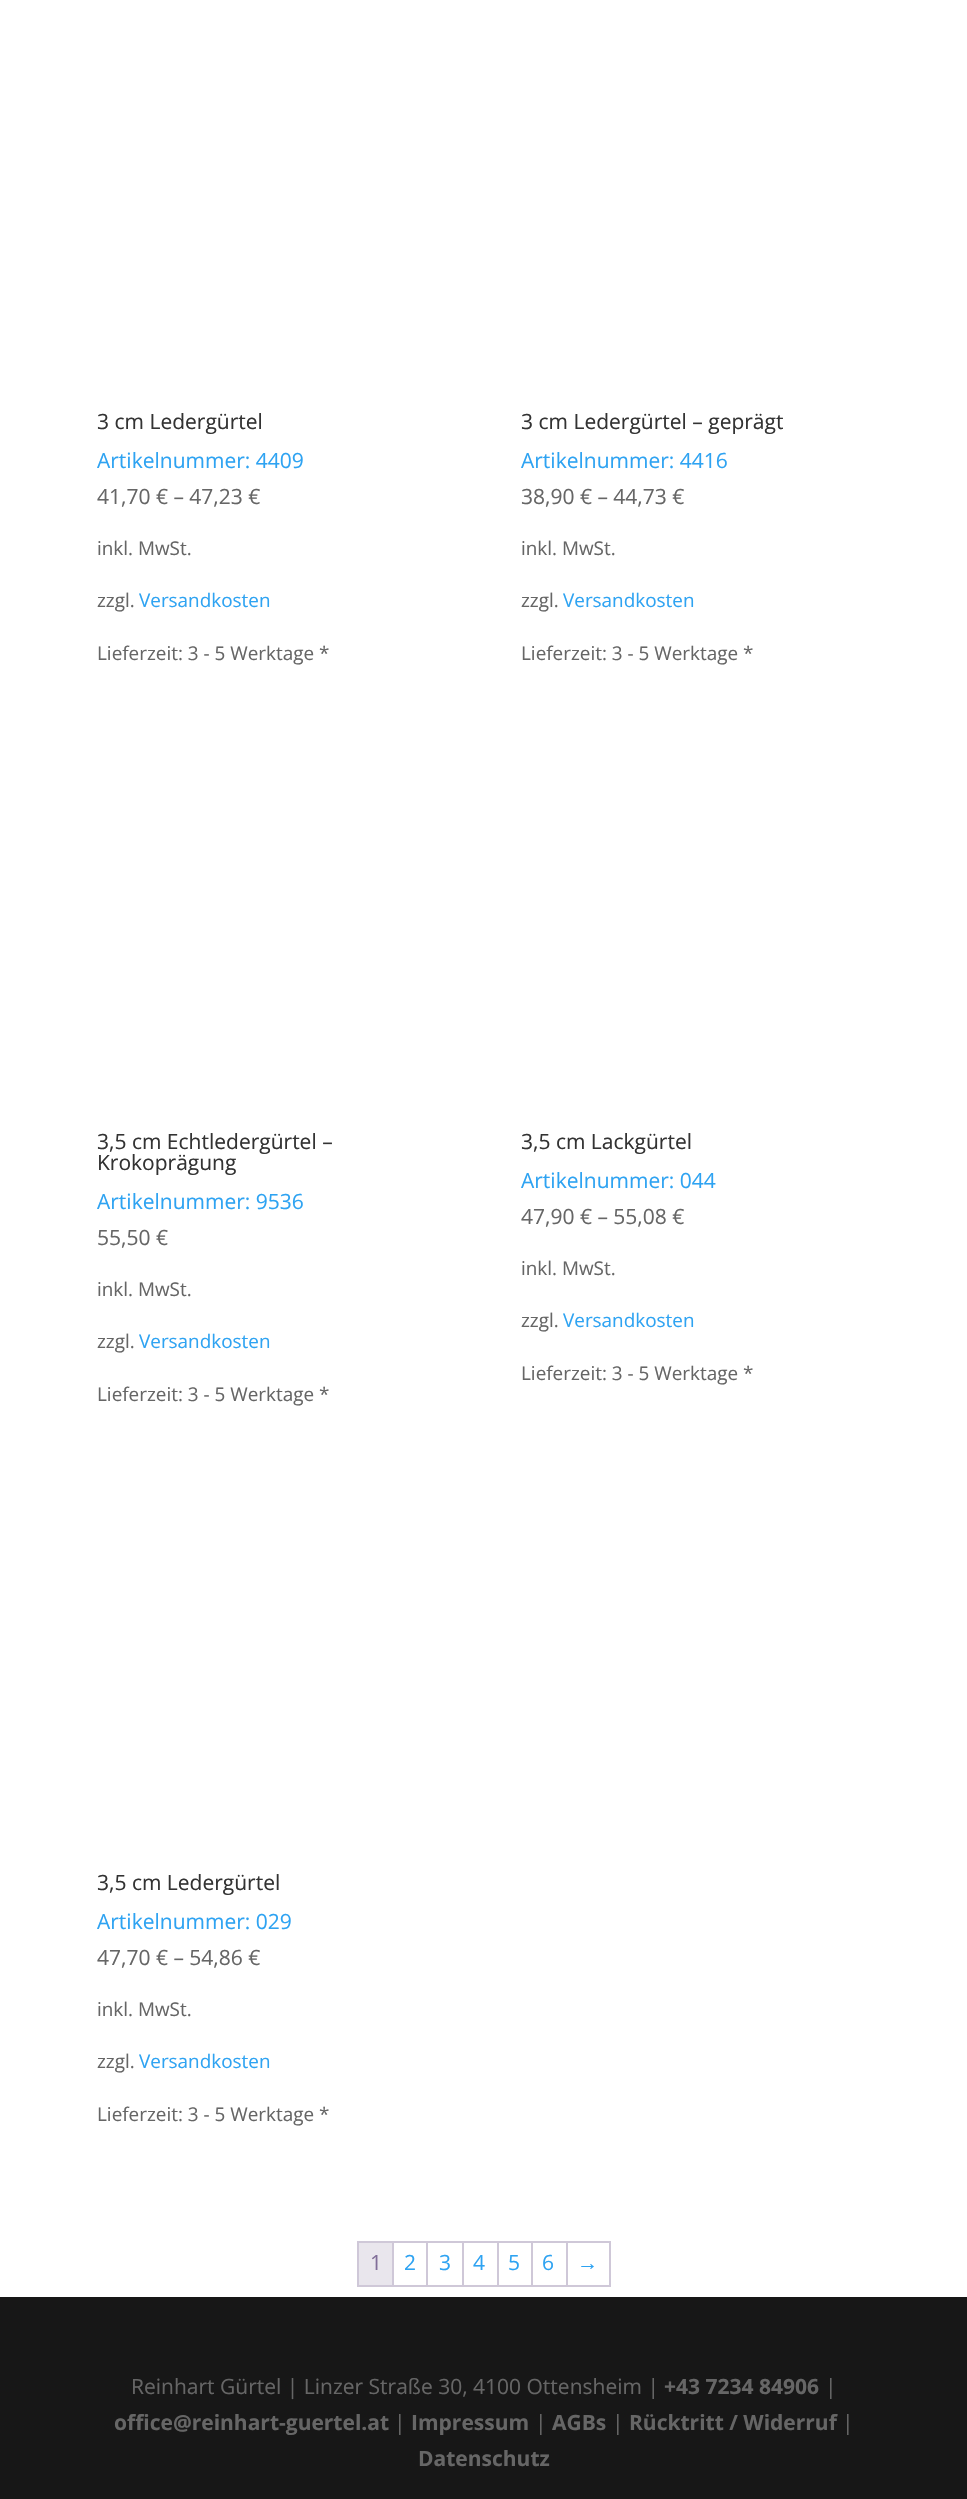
#include "include/core/SkBlurTypes.h"
#include "include/core/SkCanvas.h"
#include "include/core/SkData.h"
#include "include/core/SkFont.h"
#include "include/core/SkFontMgr.h"
#include "include/core/SkImage.h"
#include "include/core/SkMaskFilter.h"
#include "include/core/SkPaint.h"
#include "include/core/SkPathBuilder.h"
#include "include/core/SkTextBlob.h"
#include "include/effects/SkDashPathEffect.h"
#include "include/effects/SkGradientShader.h"
#include "include/utils/SkParsePath.h"

extern sk_sp<SkFontMgr> fontMgr;

static SkFont font(const char* family, int weight, float size, bool italic = false) {
    SkFontStyle style(weight, SkFontStyle::kNormal_Width,
        italic ? SkFontStyle::kItalic_Slant : SkFontStyle::kUpright_Slant);
    SkFont result(fontMgr->matchFamilyStyle(family, style), size);
    result.setSubpixel(true);
    return result;
}

static void drawLabel(SkCanvas* canvas, const char* s, float x, float y, const SkFont& font, SkColor color) {
    SkPaint ink(SkColor4f::FromColor(color));
    ink.setAntiAlias(true);
    canvas->drawString(s, x, y, font, ink);
}

static void fillRect(SkCanvas* canvas, float x, float y, float w, float h, SkColor color) {
    SkPaint ink(SkColor4f::FromColor(color));
    ink.setAntiAlias(true);
    canvas->drawRect(SkRect::MakeXYWH(x, y, w, h), ink);
}

void draw(SkCanvas* canvas) {
    SkPaint paint;
    paint.setAntiAlias(true);
    canvas->clear(0xFFFFFFFF);
    SkFont font1 = font("Open Sans", 400, 21);
    drawLabel(canvas, "3 cm Ledergürtel", 97, 429, font1, 0xFF333333);
    drawLabel(canvas, "Artikelnummer: 4409", 97, 468, font1, 0xFF2EA3F2);
    drawLabel(canvas, "41,70 € – 47,23 €", 97, 504, font1, 0xFF666666);
    SkFont font2 = font("Open Sans", 400, 18.9f);
    drawLabel(canvas, "inkl. MwSt.", 97, 555, font2, 0xFF666666);
    drawLabel(canvas, "zzgl.", 97, 607, font2, 0xFF666666);
    drawLabel(canvas, "Versandkosten", 139, 607, font2, 0xFF2EA3F2);
    drawLabel(canvas, "Lieferzeit: 3 - 5 Werktage *", 97, 660, font2, 0xFF666666);
    drawLabel(canvas, "3 cm Ledergürtel – geprägt", 521, 429, font1, 0xFF333333);
    drawLabel(canvas, "Artikelnummer: 4416", 521, 468, font1, 0xFF2EA3F2);
    drawLabel(canvas, "38,90 € – 44,73 €", 521, 504, font1, 0xFF666666);
    drawLabel(canvas, "inkl. MwSt.", 521, 555, font2, 0xFF666666);
    drawLabel(canvas, "zzgl.", 521, 607, font2, 0xFF666666);
    drawLabel(canvas, "Versandkosten", 563, 607, font2, 0xFF2EA3F2);
    drawLabel(canvas, "Lieferzeit: 3 - 5 Werktage *", 521, 660, font2, 0xFF666666);
    drawLabel(canvas, "3,5 cm Echtledergürtel –", 97, 1149, font1, 0xFF333333);
    drawLabel(canvas, "Krokoprägung", 97, 1170, font1, 0xFF333333);
    drawLabel(canvas, "Artikelnummer: 9536", 97, 1209, font1, 0xFF2EA3F2);
    drawLabel(canvas, "55,50 €", 97, 1245, font1, 0xFF666666);
    drawLabel(canvas, "inkl. MwSt.", 97, 1296, font2, 0xFF666666);
    drawLabel(canvas, "zzgl.", 97, 1348, font2, 0xFF666666);
    drawLabel(canvas, "Versandkosten", 139, 1348, font2, 0xFF2EA3F2);
    drawLabel(canvas, "Lieferzeit: 3 - 5 Werktage *", 97, 1401, font2, 0xFF666666);
    drawLabel(canvas, "3,5 cm Lackgürtel", 521, 1149, font1, 0xFF333333);
    drawLabel(canvas, "Artikelnummer: 044", 521, 1188, font1, 0xFF2EA3F2);
    drawLabel(canvas, "47,90 € – 55,08 €", 521, 1224, font1, 0xFF666666);
    drawLabel(canvas, "inkl. MwSt.", 521, 1275, font2, 0xFF666666);
    drawLabel(canvas, "zzgl.", 521, 1327, font2, 0xFF666666);
    drawLabel(canvas, "Versandkosten", 563, 1327, font2, 0xFF2EA3F2);
    drawLabel(canvas, "Lieferzeit: 3 - 5 Werktage *", 521, 1380, font2, 0xFF666666);
    drawLabel(canvas, "3,5 cm Ledergürtel", 97, 1890, font1, 0xFF333333);
    drawLabel(canvas, "Artikelnummer: 029", 97, 1929, font1, 0xFF2EA3F2);
    drawLabel(canvas, "47,70 € – 54,86 €", 97, 1965, font1, 0xFF666666);
    drawLabel(canvas, "inkl. MwSt.", 97, 2016, font2, 0xFF666666);
    drawLabel(canvas, "zzgl.", 97, 2068, font2, 0xFF666666);
    drawLabel(canvas, "Versandkosten", 139, 2068, font2, 0xFF2EA3F2);
    drawLabel(canvas, "Lieferzeit: 3 - 5 Werktage *", 97, 2121, font2, 0xFF666666);
    fillRect(canvas, 357, 2241, 254, 2, 0xFFCFC8D8);
    fillRect(canvas, 357, 2285, 254, 2, 0xFFCFC8D8);
    fillRect(canvas, 357, 2241, 2, 45, 0xFFCFC8D8);
    fillRect(canvas, 392, 2243, 2, 42, 0xFFCFC8D8);
    fillRect(canvas, 359, 2243, 33, 42, 0xFFE9E6ED);
    drawLabel(canvas, "1", 370, 2270, font1, 0xFF816E99);
    fillRect(canvas, 426, 2243, 2, 42, 0xFFCFC8D8);
    drawLabel(canvas, "2", 404, 2270, font1, 0xFF2EA3F2);
    fillRect(canvas, 462, 2243, 2, 42, 0xFFCFC8D8);
    drawLabel(canvas, "3", 439, 2270, font1, 0xFF2EA3F2);
    fillRect(canvas, 497, 2243, 2, 42, 0xFFCFC8D8);
    drawLabel(canvas, "4", 473, 2270, font1, 0xFF2EA3F2);
    fillRect(canvas, 531, 2243, 2, 42, 0xFFCFC8D8);
    drawLabel(canvas, "5", 508, 2270, font1, 0xFF2EA3F2);
    fillRect(canvas, 566, 2243, 2, 42, 0xFFCFC8D8);
    drawLabel(canvas, "6", 542, 2270, font1, 0xFF2EA3F2);
    fillRect(canvas, 609, 2243, 2, 42, 0xFFCFC8D8);
    SkFont font3 = font("Liberation Sans", 400, 21);
    drawLabel(canvas, "→", 577, 2270, font3, 0xFF2EA3F2);
    fillRect(canvas, 0, 2297, 967, 202, 0xFF171717);
    drawLabel(canvas, "Reinhart Gürtel | Linzer Straße 30, 4100 Ottensheim |", 131, 2394, font1, 0xFF666666);
    SkFont font4 = font("Open Sans", 700, 21);
    drawLabel(canvas, "+43 7234 84906", 664, 2394, font4, 0xFF666666);
    drawLabel(canvas, "|", 825, 2394, font1, 0xFF666666);
    drawLabel(canvas, "office@reinhart-guertel.at", 114, 2430, font4, 0xFF666666);
    drawLabel(canvas, "|", 394, 2430, font1, 0xFF666666);
    drawLabel(canvas, "Impressum", 411, 2430, font4, 0xFF666666);
    drawLabel(canvas, "|", 535, 2430, font1, 0xFF666666);
    drawLabel(canvas, "AGBs", 552, 2430, font4, 0xFF666666);
    drawLabel(canvas, "|", 612, 2430, font1, 0xFF666666);
    drawLabel(canvas, "Rücktritt / Widerruf", 629, 2430, font4, 0xFF666666);
    drawLabel(canvas, "|", 842, 2430, font1, 0xFF666666);
    drawLabel(canvas, "Datenschutz", 418, 2466, font4, 0xFF666666);
}
